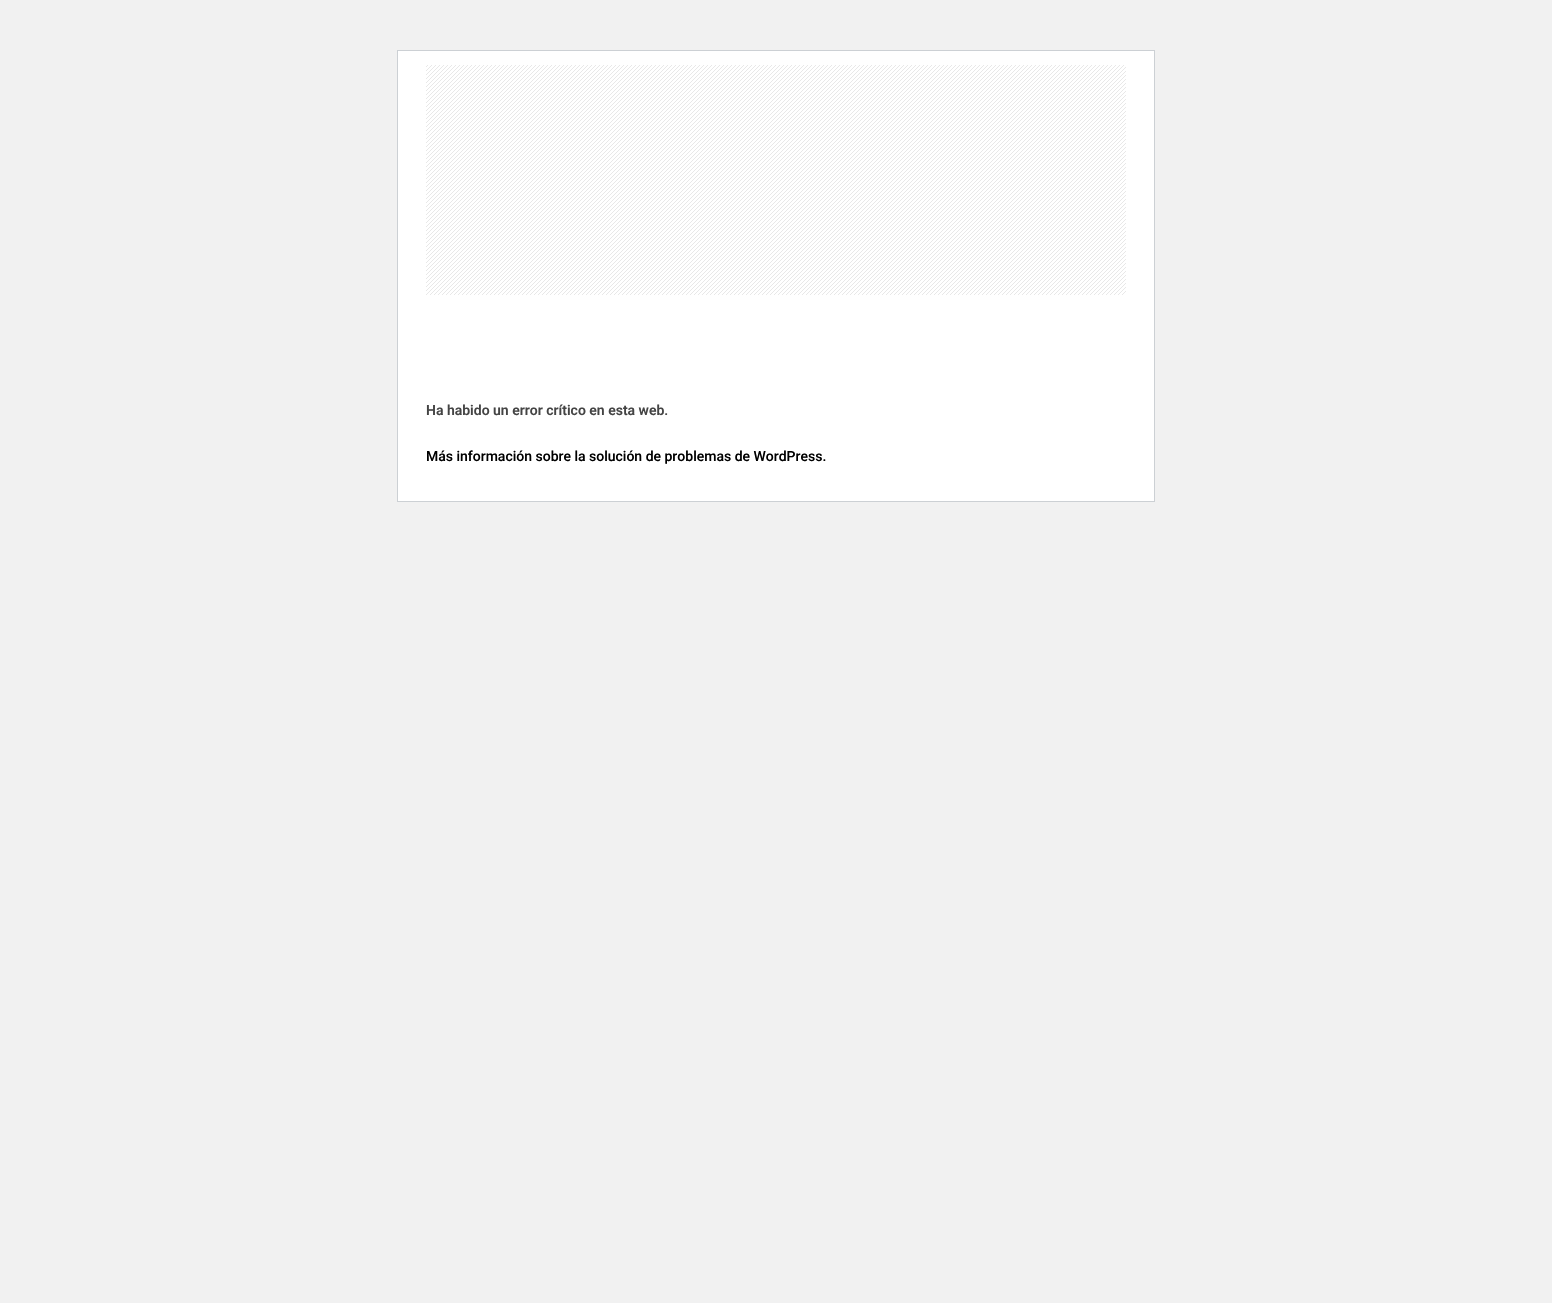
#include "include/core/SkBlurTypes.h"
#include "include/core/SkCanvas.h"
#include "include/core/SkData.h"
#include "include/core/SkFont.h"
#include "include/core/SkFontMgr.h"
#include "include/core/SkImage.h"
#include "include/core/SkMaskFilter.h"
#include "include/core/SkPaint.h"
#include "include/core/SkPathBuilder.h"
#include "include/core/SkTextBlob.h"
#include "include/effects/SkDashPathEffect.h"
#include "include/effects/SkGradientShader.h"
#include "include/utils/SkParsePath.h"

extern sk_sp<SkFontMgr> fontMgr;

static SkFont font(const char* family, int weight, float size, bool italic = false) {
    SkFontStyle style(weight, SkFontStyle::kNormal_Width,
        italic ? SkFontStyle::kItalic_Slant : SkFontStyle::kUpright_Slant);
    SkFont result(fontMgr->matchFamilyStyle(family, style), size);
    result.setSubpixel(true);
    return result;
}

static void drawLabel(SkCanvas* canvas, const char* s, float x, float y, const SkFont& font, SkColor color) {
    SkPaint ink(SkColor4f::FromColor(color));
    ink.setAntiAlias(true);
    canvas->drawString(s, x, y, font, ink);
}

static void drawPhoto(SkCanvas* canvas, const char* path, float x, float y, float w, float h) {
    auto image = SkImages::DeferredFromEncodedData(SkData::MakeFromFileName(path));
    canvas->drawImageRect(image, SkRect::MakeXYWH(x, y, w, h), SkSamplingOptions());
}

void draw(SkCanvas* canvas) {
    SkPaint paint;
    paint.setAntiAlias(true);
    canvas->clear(0xFFF1F1F1);
    paint.setColor(0xFFFFFFFF);
    canvas->drawRect(SkRect::MakeXYWH(397.5f, 50.5f, 757, 451), paint);
    paint.setStroke(true);
    paint.setStrokeWidth(1);
    paint.setColor(0xFFCCD0D4);
    canvas->drawRect(SkRect::MakeXYWH(397.5f, 50.5f, 757, 451), paint);
    drawPhoto(canvas, "assets/img1.png", 426, 65, 700, 230);
    SkFont font1 = font("Roboto", 600, 14);
    drawLabel(canvas, "Ha habido un error crítico en esta web.", 426, 415, font1, 0xFF444444);
    SkFont font2 = font("Roboto", 500, 14);
    drawLabel(canvas, "Más información sobre la solución de problemas de WordPress.", 426, 461, font2, 0xFF000000);
}
